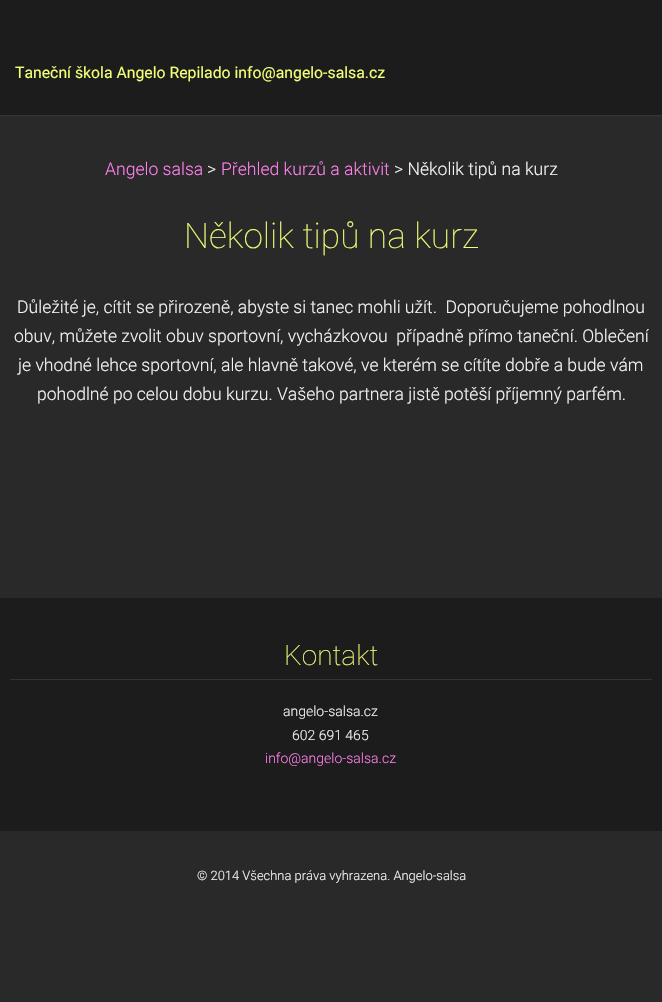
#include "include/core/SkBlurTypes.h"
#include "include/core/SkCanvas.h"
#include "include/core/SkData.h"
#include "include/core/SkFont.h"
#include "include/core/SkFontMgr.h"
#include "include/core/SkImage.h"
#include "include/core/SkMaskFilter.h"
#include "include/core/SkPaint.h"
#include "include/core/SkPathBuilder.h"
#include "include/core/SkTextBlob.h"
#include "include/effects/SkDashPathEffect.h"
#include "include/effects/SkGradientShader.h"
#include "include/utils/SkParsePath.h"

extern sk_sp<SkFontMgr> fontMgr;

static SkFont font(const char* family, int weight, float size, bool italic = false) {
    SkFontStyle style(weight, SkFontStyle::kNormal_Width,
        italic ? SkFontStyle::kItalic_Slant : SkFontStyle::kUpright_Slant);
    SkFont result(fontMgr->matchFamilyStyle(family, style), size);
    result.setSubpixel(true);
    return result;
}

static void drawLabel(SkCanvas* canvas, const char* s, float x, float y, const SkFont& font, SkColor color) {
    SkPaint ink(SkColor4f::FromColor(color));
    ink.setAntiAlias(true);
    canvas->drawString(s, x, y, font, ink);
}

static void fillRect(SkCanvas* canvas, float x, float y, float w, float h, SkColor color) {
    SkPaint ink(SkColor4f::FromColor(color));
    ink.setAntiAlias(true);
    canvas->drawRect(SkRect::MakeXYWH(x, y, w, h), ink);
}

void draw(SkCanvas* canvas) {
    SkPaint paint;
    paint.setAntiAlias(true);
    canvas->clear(0xFF292929);
    paint.setColor(0xFF4C4C4C);
    paint.setMaskFilter(SkMaskFilter::MakeBlur(kNormal_SkBlurStyle, 1));
    canvas->drawRect(SkRect::MakeXYWH(0, 0, 662, 115), paint);
    paint.setMaskFilter(nullptr);
    fillRect(canvas, 0, 0, 662, 115, 0xFF1C1C1C);
    SkFont font1 = font("Roboto", 400, 15.8f);
    drawLabel(canvas, "Taneční škola Angelo Repilado info@angelo-salsa.cz", 15, 78, font1, 0xFFF4FF77);
    SkFont font2 = font("Roboto", 300, 17.6f);
    drawLabel(canvas, "Angelo salsa", 105, 175, font2, 0xFFFF80EB);
    drawLabel(canvas, ">", 207, 175, font2, 0xFFF4F4F4);
    drawLabel(canvas, "Přehled kurzů a aktivit", 221, 175, font2, 0xFFFF80EB);
    drawLabel(canvas, "> Několik tipů na kurz", 394, 175, font2, 0xFFF4F4F4);
    SkFont font3 = font("Roboto", 100, 35.25f);
    drawLabel(canvas, "Několik tipů na kurz", 184, 248, font3, 0xFFF4FF77);
    drawLabel(canvas, "Důležité je, cítit se přirozeně, abyste si tanec mohli užít.  Doporučujeme pohodlnou", 17, 313, font2, 0xFFF4F4F4);
    drawLabel(canvas, "obuv, můžete zvolit obuv sportovní, vycházkovou  případně přímo taneční. Oblečení", 14, 342, font2, 0xFFF4F4F4);
    drawLabel(canvas, "je vhodné lehce sportovní, ale hlavně takové, ve kterém se cítíte dobře a bude vám", 18, 371, font2, 0xFFF4F4F4);
    drawLabel(canvas, "pohodlné po celou dobu kurzu. Vašeho partnera jistě potěší příjemný parfém.", 37, 400, font2, 0xFFF4F4F4);
    fillRect(canvas, 0, 598, 662, 233, 0xFF1C1C1C);
    fillRect(canvas, 10, 679, 642, 1, 0xFF343434);
    SkFont font4 = font("Roboto", 100, 28);
    drawLabel(canvas, "Kontakt", 284, 665, font4, 0xFFF4FF77);
    SkFont font5 = font("Roboto", 300, 14);
    drawLabel(canvas, "angelo-salsa.cz", 283, 716, font5, 0xFFF4F4F4);
    drawLabel(canvas, "602 691 465", 292, 740, font5, 0xFFF4F4F4);
    drawLabel(canvas, "info@angelo-salsa.cz", 265, 763, font5, 0xFFFF80EB);
    SkFont font6 = font("Roboto", 300, 12.95f);
    drawLabel(canvas, "© 2014 Všechna práva vyhrazena. Angelo-salsa", 197, 880, font6, 0xFFF4F4F4);
}
